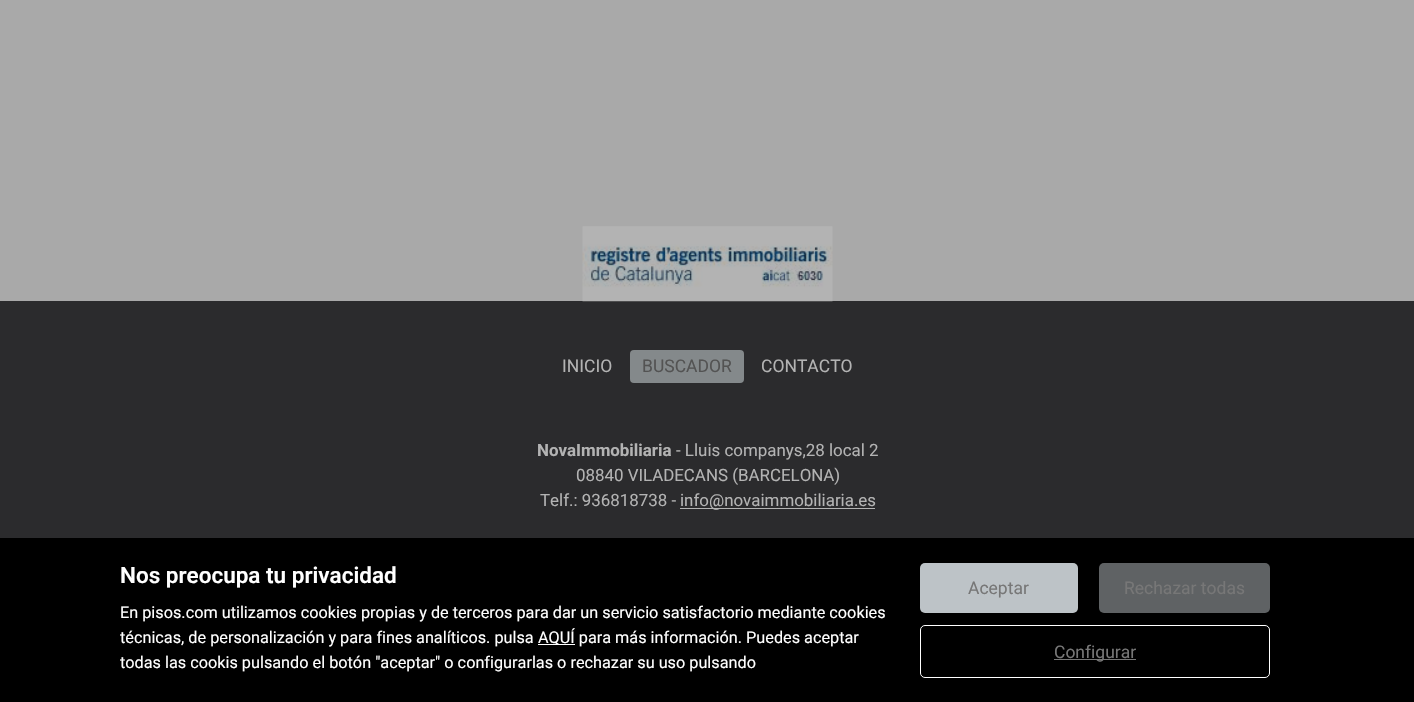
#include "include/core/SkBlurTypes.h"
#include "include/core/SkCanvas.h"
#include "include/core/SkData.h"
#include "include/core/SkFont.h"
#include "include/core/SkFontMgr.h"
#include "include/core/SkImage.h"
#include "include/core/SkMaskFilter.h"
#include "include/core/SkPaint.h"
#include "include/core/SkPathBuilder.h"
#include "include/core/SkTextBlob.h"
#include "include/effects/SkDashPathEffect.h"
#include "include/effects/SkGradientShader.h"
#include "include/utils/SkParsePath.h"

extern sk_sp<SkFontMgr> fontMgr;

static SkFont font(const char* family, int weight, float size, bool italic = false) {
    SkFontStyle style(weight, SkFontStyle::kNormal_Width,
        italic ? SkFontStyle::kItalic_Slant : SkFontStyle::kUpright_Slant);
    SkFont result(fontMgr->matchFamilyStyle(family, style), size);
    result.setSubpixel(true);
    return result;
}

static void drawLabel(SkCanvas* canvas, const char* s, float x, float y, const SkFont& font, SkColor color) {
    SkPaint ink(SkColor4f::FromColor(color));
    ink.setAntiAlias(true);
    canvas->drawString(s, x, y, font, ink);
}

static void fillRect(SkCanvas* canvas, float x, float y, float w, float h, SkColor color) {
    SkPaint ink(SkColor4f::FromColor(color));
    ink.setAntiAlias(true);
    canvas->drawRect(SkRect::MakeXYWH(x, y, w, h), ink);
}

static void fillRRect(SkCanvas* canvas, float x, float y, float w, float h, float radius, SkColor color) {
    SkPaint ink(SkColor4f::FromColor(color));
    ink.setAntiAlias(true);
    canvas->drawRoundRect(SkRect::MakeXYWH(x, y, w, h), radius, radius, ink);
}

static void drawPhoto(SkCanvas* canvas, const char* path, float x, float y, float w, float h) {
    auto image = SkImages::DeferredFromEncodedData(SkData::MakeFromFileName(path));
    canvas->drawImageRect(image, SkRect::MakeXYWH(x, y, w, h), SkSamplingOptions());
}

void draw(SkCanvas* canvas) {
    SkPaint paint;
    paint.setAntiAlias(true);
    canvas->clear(0xFFA9A9A9);
    fillRect(canvas, 0, 301, 1414, 237, 0xFF2B2B2D);
    drawPhoto(canvas, "assets/img1.png", 582, 226, 251, 76);
    SkFont font1 = font("Roboto", 400, 17.5f);
    drawLabel(canvas, "INICIO", 562, 372, font1, 0xFFB3B3B3);
    fillRRect(canvas, 630, 350, 114, 33, 4, 0xFF84898B);
    drawLabel(canvas, "BUSCADOR", 642, 372, font1, 0xFF535353);
    drawLabel(canvas, "CONTACTO", 761, 372, font1, 0xFFB3B3B3);
    SkFont font2 = font("Roboto", 700, 16.9f);
    drawLabel(canvas, "NovaImmobiliaria", 537, 456, font2, 0xFFB3B3B3);
    SkFont font3 = font("Roboto", 400, 16.9f);
    drawLabel(canvas, "- Lluis companys,28 local 2", 676, 456, font3, 0xFFB3B3B3);
    drawLabel(canvas, "08840 VILADECANS (BARCELONA)", 576, 481, font3, 0xFFB3B3B3);
    drawLabel(canvas, "Telf.: 936818738 -", 540, 506, font3, 0xFFB3B3B3);
    fillRect(canvas, 680, 508, 195, 1, 0xFFB3B3B3);
    drawLabel(canvas, "info@novaimmobiliaria.es", 680, 506, font3, 0xFFB3B3B3);
    fillRect(canvas, 0, 538, 1414, 164, 0xFF000000);
    SkFont font4 = font("Roboto", 600, 22.5f);
    drawLabel(canvas, "Nos preocupa tu privacidad", 120, 583, font4, 0xFFFFFFFF);
    SkFont font5 = font("Roboto", 400, 16.25f);
    drawLabel(canvas, "En pisos.com utilizamos cookies propias y de terceros para dar un servicio satisfactorio mediante cookies", 120, 618, font5, 0xFFFFFFFF);
    drawLabel(canvas, "técnicas, de personalización y para fines analíticos. pulsa", 120, 643, font5, 0xFFFFFFFF);
    fillRect(canvas, 538, 644, 37, 1, 0xFFFFFFFF);
    drawLabel(canvas, "AQUÍ para más información. Puedes aceptar", 538, 643, font5, 0xFFFFFFFF);
    drawLabel(canvas, "todas las cookis pulsando el botón \"aceptar\" o configurarlas o rechazar su uso pulsando", 120, 668, font5, 0xFFFFFFFF);
    fillRRect(canvas, 920, 563, 158, 50, 5, 0xFFBDC3C7);
    drawLabel(canvas, "Aceptar", 968, 594, font1, 0xFF777777);
    fillRRect(canvas, 1099, 563, 171, 50, 5, 0xFF5F6264);
    drawLabel(canvas, "Rechazar todas", 1124, 594, font1, 0xFF777777);
    paint.setStroke(true);
    paint.setStrokeWidth(1);
    paint.setColor(0xFFFFFFFF);
    canvas->drawRoundRect(SkRect::MakeXYWH(920.5f, 625.5f, 349, 52), 4.5f, 4.5f, paint);
    fillRect(canvas, 1054, 659, 82, 1, 0xFF777777);
    drawLabel(canvas, "Configurar", 1054, 658, font1, 0xFF777777);
}
